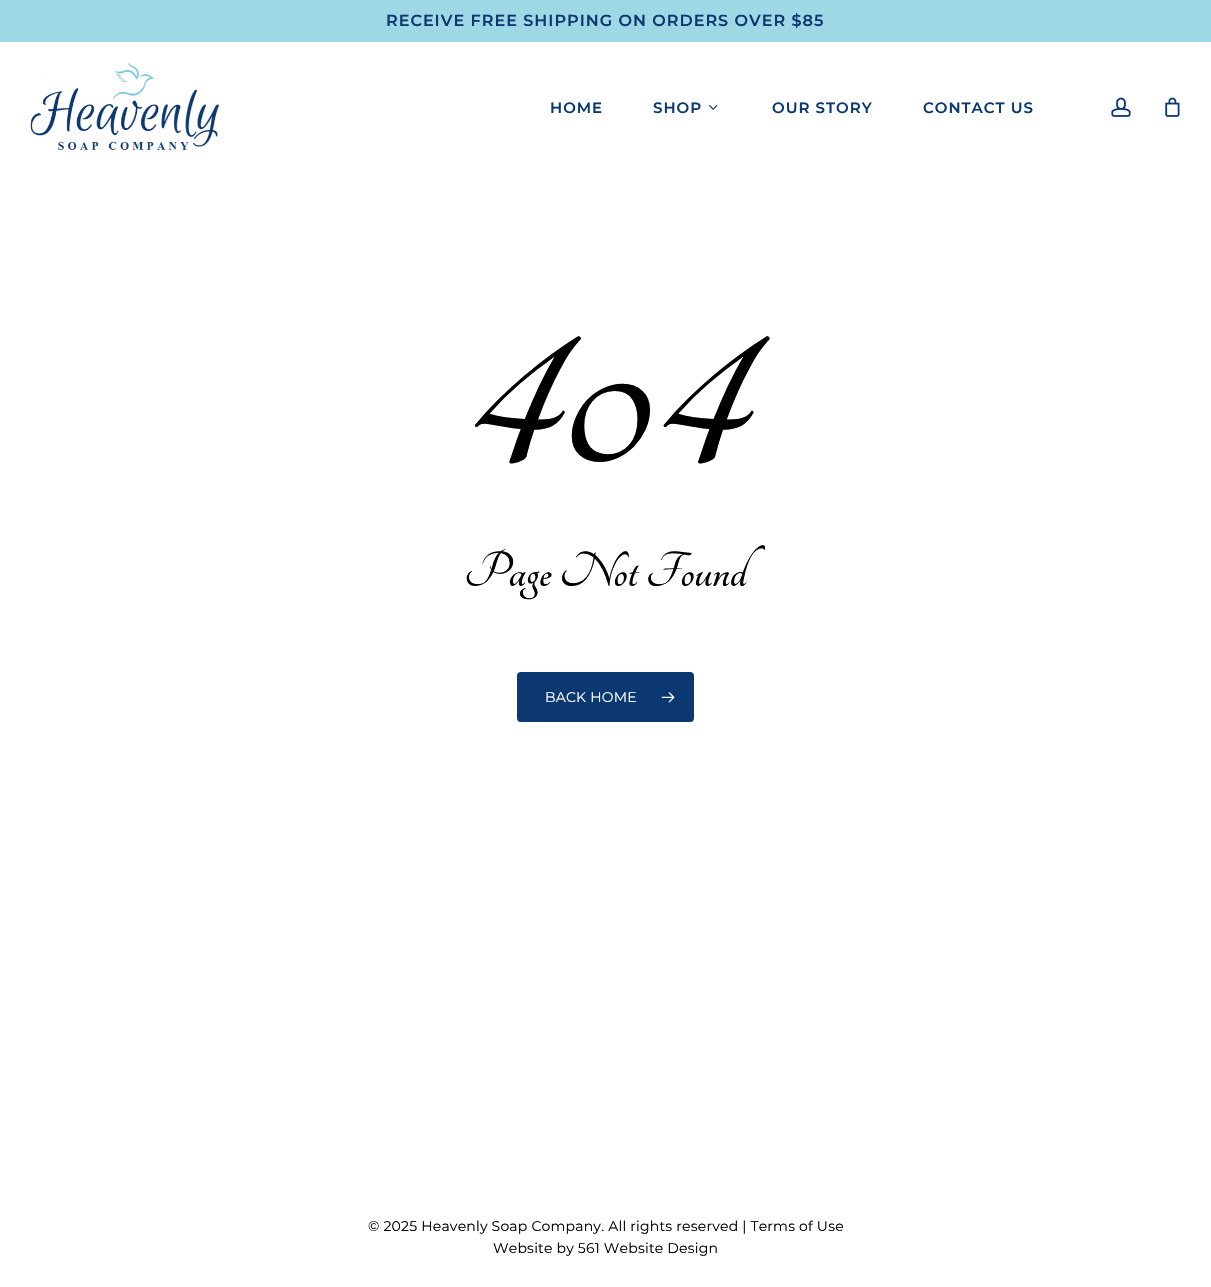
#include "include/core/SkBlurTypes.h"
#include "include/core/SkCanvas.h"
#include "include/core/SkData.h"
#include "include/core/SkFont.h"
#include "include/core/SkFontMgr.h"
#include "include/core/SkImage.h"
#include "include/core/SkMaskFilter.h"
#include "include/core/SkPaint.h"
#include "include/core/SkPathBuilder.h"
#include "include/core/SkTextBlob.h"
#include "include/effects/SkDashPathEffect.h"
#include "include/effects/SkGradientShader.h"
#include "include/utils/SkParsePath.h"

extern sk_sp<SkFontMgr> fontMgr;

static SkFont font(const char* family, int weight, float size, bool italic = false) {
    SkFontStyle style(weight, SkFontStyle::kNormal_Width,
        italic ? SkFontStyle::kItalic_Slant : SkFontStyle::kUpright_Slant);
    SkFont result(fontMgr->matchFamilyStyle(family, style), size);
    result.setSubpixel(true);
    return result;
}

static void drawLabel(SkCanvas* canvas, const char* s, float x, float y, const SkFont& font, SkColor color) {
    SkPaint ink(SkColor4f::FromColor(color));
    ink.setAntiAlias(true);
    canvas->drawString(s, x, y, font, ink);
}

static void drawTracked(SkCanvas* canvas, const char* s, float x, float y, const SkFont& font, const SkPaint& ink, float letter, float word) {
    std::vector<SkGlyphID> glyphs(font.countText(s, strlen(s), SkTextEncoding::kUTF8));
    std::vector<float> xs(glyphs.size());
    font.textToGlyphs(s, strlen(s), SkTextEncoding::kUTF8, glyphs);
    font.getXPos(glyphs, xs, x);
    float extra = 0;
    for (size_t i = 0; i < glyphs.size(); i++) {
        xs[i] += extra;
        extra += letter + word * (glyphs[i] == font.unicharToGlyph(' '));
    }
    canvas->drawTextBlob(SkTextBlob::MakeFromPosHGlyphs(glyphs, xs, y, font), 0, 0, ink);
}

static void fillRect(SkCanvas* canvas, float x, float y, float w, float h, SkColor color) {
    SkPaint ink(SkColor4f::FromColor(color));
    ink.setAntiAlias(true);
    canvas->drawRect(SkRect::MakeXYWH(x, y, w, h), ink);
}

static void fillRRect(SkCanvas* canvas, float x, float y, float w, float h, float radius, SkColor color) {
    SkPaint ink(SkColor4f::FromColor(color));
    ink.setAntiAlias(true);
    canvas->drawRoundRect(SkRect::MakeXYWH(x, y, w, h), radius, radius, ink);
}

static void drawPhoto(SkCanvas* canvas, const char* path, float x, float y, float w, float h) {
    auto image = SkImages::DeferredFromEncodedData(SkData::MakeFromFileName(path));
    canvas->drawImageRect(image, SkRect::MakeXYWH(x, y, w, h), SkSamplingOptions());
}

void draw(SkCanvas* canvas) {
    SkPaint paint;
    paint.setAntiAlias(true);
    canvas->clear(0xFFFFFFFF);
    fillRect(canvas, 0, 0, 1211, 42, 0xFF9ED8E5);
    SkFont font1 = font("Montserrat", 600, 16);
    paint.setColor(0xFF0B3870);
    drawTracked(canvas, "RECEIVE FREE SHIPPING ON ORDERS OVER $85", 386, 26, font1, paint, 1, 0);
    drawPhoto(canvas, "assets/img1.png", 30, 62, 190, 88);
    SkFont font2 = font("Montserrat", 600, 15);
    drawTracked(canvas, "HOME", 550, 113, font2, paint, 1, 0);
    drawTracked(canvas, "SHOP", 653, 113, font2, paint, 1, 0);
    drawPhoto(canvas, "assets/img2.png", 708, 105, 10, 5);
    drawTracked(canvas, "OUR STORY", 772, 113, font2, paint, 1, 0);
    drawTracked(canvas, "CONTACT US", 923, 113, font2, paint, 1, 0);
    drawPhoto(canvas, "assets/img3.png", 1111, 97, 20, 20);
    drawPhoto(canvas, "assets/img4.png", 1165, 97, 15, 20);
    SkFont font3 = font("Tangerine", 700, 250);
    drawLabel(canvas, "404", 465, 462, font3, 0xFF000000);
    SkFont font4 = font("Tangerine", 700, 54);
    drawLabel(canvas, "Page Not Found", 464, 586, font4, 0xFF000000);
    fillRRect(canvas, 517, 672, 177, 50, 4, 0xFF0B3870);
    SkFont font5 = font("Montserrat", 400, 14);
    paint.setColor(0xFFFFFFFF);
    drawTracked(canvas, "BACK HOME", 545, 702, font5, paint, 0.2f, 0);
    drawPhoto(canvas, "assets/img5.png", 661, 692, 14, 11);
    paint.setColor(0xFF000000);
    drawTracked(canvas, "© 2025 Heavenly Soap Company. All rights reserved | Terms of Use", 368, 1231, font5, paint, 0.2f, 0);
    drawTracked(canvas, "Website by 561 Website Design", 493, 1253, font5, paint, 0.2f, 0);
}
